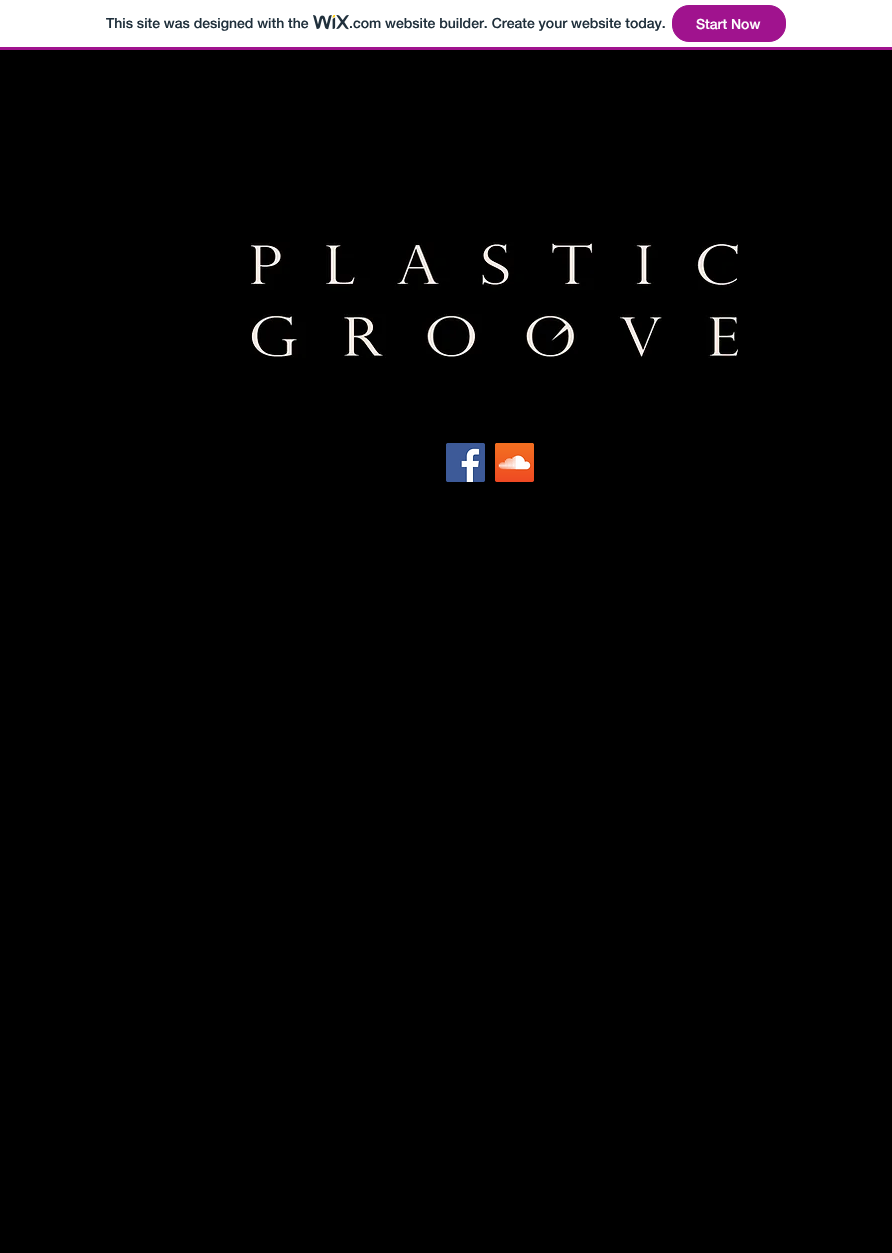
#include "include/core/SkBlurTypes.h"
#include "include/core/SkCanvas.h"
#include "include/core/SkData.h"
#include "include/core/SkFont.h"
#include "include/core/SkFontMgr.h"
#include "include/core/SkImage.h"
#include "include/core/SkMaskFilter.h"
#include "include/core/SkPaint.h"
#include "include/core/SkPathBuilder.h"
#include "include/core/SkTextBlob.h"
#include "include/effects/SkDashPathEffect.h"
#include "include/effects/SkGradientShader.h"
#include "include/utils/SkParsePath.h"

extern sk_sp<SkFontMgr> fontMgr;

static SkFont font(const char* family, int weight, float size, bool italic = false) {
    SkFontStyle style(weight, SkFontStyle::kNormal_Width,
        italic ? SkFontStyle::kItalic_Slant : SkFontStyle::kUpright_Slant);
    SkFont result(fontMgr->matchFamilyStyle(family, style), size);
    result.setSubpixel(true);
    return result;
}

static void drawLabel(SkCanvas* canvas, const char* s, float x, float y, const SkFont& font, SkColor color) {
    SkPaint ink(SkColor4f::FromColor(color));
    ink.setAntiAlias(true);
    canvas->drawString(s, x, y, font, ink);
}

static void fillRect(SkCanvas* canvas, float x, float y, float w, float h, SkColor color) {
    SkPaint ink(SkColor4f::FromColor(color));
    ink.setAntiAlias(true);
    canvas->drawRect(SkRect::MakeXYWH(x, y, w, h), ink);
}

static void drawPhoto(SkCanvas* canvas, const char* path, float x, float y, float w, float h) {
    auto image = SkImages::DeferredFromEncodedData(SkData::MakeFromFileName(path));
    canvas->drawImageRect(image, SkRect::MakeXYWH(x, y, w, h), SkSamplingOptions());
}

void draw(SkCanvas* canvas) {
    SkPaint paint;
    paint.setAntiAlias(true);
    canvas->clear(0xFFFFFFFF);
    fillRect(canvas, 0, 47, 892, 3, 0xFFA0138E);
    SkFont font1 = font("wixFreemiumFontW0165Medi", 500, 14);
    drawLabel(canvas, "This site was designed with the", 106, 28, font1, 0xFF20303C);
    drawPhoto(canvas, "assets/img1.png", 313, 15, 36, 15);
    drawLabel(canvas, ".com website builder. Create your website today.", 349, 28, font1, 0xFF20303C);
    paint.setColor(0xFFA0138E);
    canvas->drawRoundRect(SkRect::MakeXYWH(672.5f, 5.5f, 113, 36), 16.5f, 16.5f, paint);
    paint.setStroke(true);
    paint.setStrokeWidth(1);
    canvas->drawRoundRect(SkRect::MakeXYWH(672.5f, 5.5f, 113, 36), 16.5f, 16.5f, paint);
    drawLabel(canvas, "Start Now", 696, 29, font1, 0xFFFFFFFF);
    fillRect(canvas, 0, 50, 892, 1203, 0xFF000000);
    drawPhoto(canvas, "assets/img2.png", 250, 242, 488, 116);
    drawPhoto(canvas, "assets/img3.png", 446, 443, 39, 39);
    drawPhoto(canvas, "assets/img4.png", 495, 443, 39, 39);
}
